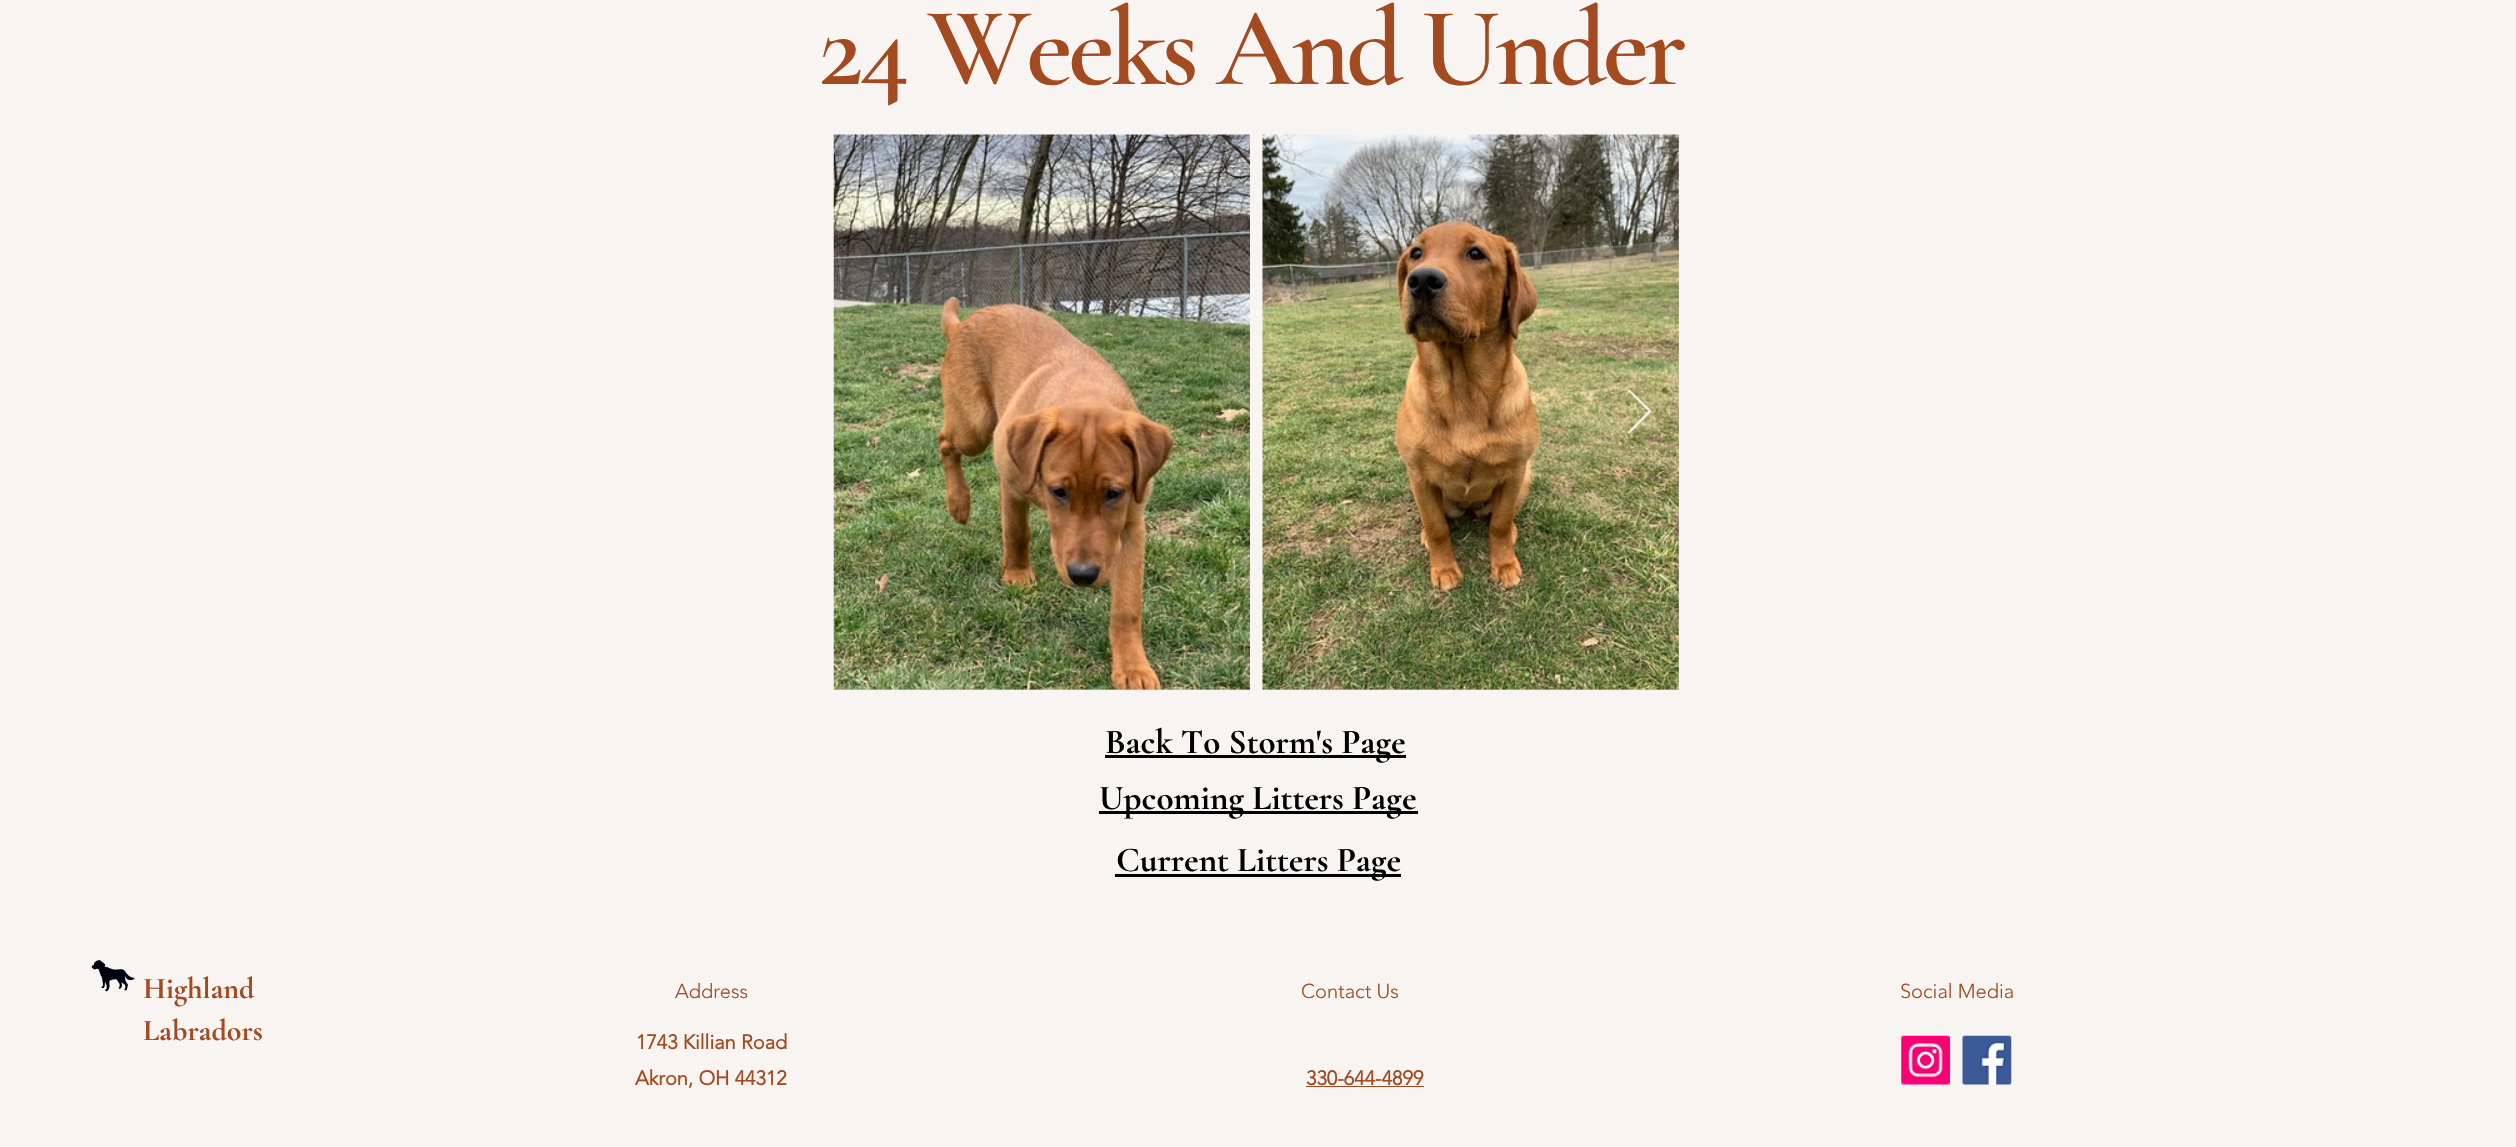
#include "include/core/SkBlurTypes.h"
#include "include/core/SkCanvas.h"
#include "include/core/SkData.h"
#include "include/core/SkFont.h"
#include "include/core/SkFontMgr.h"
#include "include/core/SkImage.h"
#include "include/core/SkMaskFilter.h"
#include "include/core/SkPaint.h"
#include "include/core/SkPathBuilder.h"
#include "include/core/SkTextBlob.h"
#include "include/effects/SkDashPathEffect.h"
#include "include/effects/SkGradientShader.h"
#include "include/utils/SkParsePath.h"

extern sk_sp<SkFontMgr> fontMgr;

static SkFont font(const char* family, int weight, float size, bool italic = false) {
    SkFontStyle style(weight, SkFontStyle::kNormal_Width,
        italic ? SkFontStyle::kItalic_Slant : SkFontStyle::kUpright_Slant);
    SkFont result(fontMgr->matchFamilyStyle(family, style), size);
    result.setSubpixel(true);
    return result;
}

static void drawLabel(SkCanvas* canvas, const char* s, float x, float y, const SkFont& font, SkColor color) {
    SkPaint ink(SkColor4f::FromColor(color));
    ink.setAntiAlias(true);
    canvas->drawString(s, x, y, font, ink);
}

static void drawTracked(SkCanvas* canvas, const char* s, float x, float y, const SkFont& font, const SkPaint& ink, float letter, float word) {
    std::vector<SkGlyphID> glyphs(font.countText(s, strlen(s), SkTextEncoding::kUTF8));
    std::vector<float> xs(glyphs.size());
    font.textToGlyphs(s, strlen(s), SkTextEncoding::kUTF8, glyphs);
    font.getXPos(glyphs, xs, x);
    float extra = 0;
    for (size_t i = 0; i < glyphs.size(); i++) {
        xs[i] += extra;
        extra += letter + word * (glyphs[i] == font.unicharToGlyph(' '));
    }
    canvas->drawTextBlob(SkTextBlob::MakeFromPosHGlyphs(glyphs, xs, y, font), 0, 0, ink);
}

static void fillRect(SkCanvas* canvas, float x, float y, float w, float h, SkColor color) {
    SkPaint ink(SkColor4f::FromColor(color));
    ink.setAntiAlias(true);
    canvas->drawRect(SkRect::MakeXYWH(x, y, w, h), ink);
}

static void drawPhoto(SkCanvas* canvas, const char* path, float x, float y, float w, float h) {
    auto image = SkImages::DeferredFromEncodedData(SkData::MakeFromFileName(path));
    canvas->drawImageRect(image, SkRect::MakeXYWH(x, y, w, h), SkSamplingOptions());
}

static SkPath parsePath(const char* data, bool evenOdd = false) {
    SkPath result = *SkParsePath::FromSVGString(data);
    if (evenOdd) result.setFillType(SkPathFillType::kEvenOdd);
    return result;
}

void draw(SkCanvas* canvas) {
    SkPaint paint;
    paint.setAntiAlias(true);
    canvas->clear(0xFFF8F4F1);
    SkFont font1 = font("Cormorant Garamond", 600, 112.5f);
    paint.setColor(0xFFA34A21);
    drawTracked(canvas, "24 Weeks And Under", 818, 84, font1, paint, -4.5f, 0);
    fillRect(canvas, 834, 689, 416, 1, 0xFFC6C3C1);
    drawPhoto(canvas, "assets/img1.png", 833, 134, 417, 556);
    fillRect(canvas, 1263, 135, 416, 555, 0xFFC6C3C1);
    drawPhoto(canvas, "assets/img2.png", 1262, 134, 417, 556);
    paint.setColor(0xE6F8F4F1);
    canvas->drawPath(parsePath("M1628 391L1629 389L1652 411L1629 434L1628 432L1648 411Z"), paint);
    fillRect(canvas, 1105, 755, 301, 3, 0xFF000000);
    SkFont font2 = font("Cormorant Garamond", 700, 35);
    drawLabel(canvas, "Back To Storm's Page", 1105, 753, font2, 0xFF000000);
    fillRect(canvas, 1099, 811, 319, 3, 0xFF000000);
    drawLabel(canvas, "Upcoming Litters Page", 1099, 809, font2, 0xFF000000);
    fillRect(canvas, 1115, 874, 286, 3, 0xFF000000);
    drawLabel(canvas, "Current Litters Page", 1116, 871, font2, 0xFF000000);
    drawPhoto(canvas, "assets/img3.png", 91, 960, 44, 32);
    SkFont font3 = font("Cormorant Garamond", 700, 30);
    drawLabel(canvas, "Highland", 143, 998, font3, 0xFFA34A21);
    drawLabel(canvas, "Labradors", 143, 1040, font3, 0xFFA34A21);
    SkFont font4 = font("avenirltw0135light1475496", 300, 20);
    drawLabel(canvas, "Address", 675, 998, font4, 0xFFA34A21);
    SkFont font5 = font("avenirltw0135light1475496", 700, 20);
    drawLabel(canvas, "1743 Killian Road", 636, 1049, font5, 0xFFA34A21);
    drawLabel(canvas, "Akron, OH 44312", 635, 1085, font5, 0xFFA34A21);
    drawLabel(canvas, "Contact Us", 1301, 998, font4, 0xFFA34A21);
    drawLabel(canvas, "330-644-4899", 1306, 1085, font5, 0xFFA34A21);
    fillRect(canvas, 1306, 1086, 118, 1, 0xFFA34A21);
    drawLabel(canvas, "Social Media", 1900, 998, font4, 0xFFA34A21);
    drawPhoto(canvas, "assets/img4.png", 1901, 1035, 49, 50);
    drawPhoto(canvas, "assets/img5.png", 1962, 1035, 50, 50);
}
